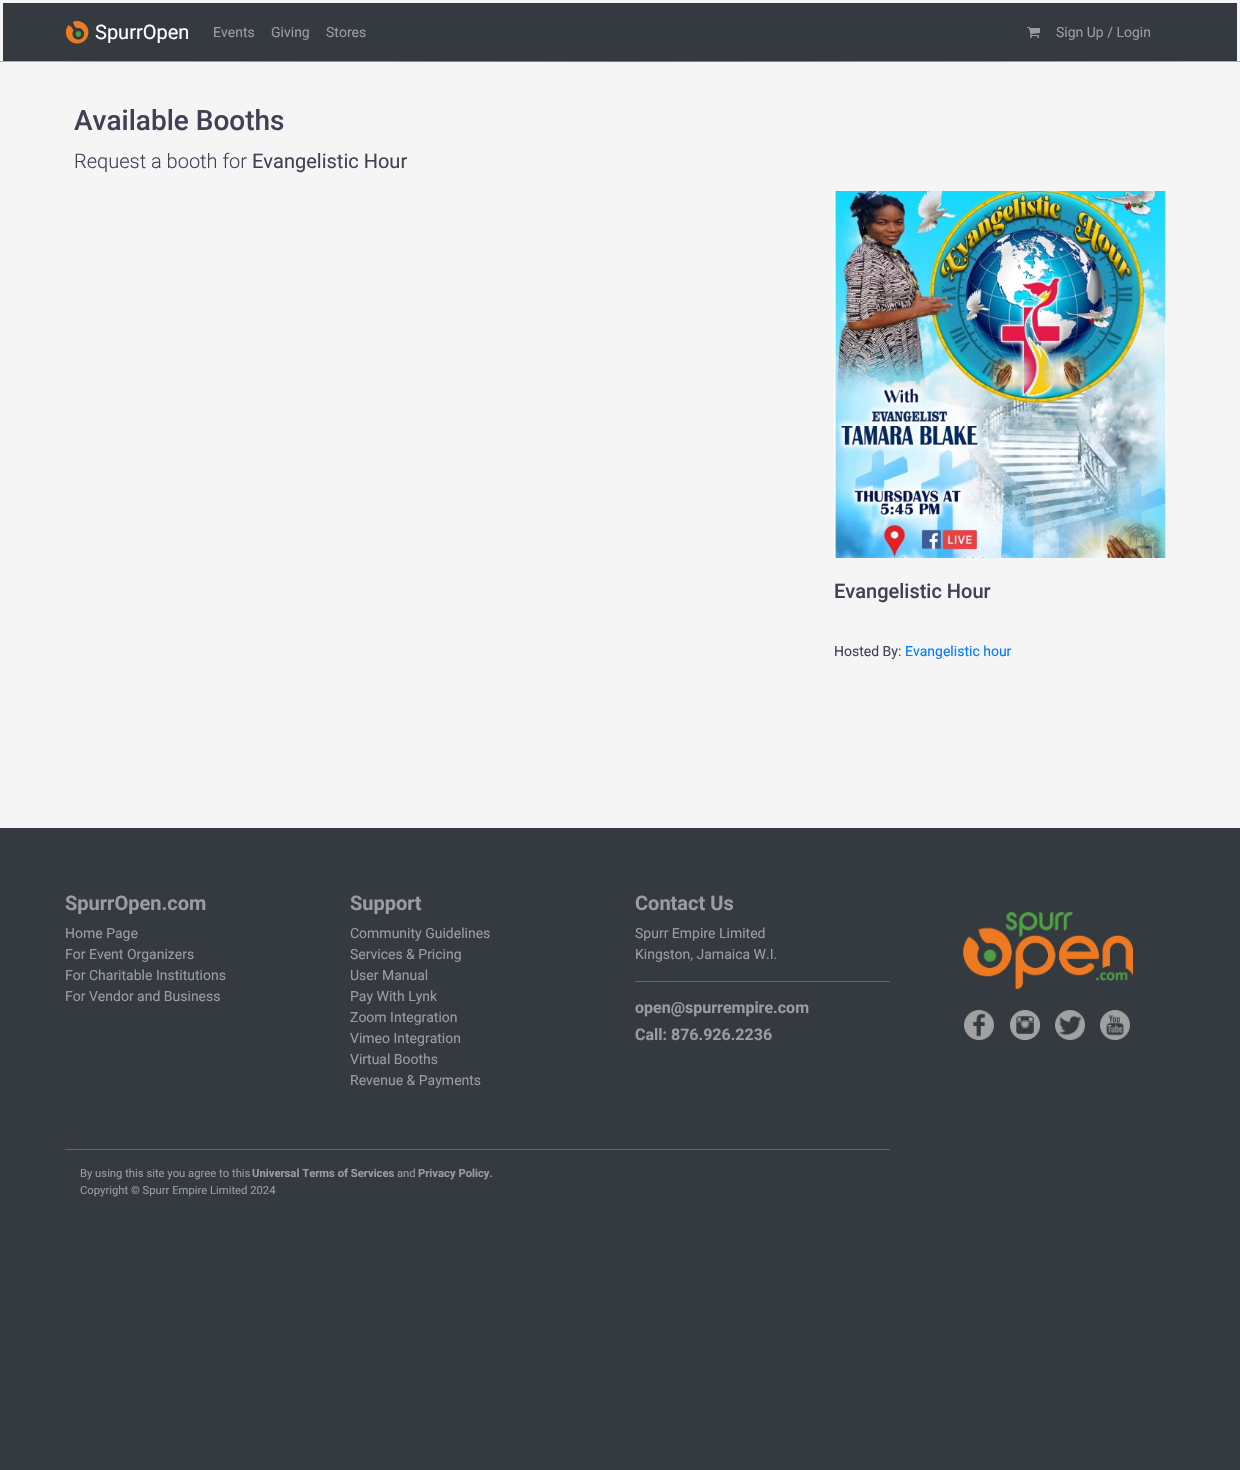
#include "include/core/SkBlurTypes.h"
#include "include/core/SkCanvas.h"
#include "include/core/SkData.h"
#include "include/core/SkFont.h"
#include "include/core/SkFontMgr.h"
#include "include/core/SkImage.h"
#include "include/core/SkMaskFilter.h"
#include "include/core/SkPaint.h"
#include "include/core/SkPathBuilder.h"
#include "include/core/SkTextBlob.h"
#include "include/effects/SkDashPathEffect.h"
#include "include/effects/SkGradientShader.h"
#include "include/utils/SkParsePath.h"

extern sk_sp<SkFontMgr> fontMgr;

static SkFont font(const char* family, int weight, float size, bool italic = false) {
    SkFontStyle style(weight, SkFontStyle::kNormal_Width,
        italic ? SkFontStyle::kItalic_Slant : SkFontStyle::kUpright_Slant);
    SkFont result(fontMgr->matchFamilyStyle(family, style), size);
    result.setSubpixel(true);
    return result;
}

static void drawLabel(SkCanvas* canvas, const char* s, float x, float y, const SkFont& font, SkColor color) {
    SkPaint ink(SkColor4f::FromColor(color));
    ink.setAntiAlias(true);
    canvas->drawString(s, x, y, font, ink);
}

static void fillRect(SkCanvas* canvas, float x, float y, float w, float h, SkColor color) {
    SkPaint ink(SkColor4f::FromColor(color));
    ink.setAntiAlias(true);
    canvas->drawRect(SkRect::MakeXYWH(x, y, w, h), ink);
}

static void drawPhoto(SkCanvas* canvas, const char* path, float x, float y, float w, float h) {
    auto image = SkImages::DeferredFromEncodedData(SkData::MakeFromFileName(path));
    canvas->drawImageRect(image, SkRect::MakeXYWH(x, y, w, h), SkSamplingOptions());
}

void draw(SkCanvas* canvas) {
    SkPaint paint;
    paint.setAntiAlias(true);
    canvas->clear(0xFF343A40);
    fillRect(canvas, 0, 0, 1240, 828, 0xFFF5F5F5);
    fillRect(canvas, 3, 3, 1234, 58, 0xFF343A40);
    drawPhoto(canvas, "assets/img1.png", 0, 61, 1240, 1);
    drawPhoto(canvas, "assets/img2.png", 65, 21, 24, 23);
    SkFont font1 = font("Roboto", 400, 20);
    drawLabel(canvas, "SpurrOpen", 95, 39, font1, 0xFFFFFFFF);
    SkFont font2 = font("Roboto", 400, 14);
    drawLabel(canvas, "Events", 213, 37, font2, 0xFF9A9DA0);
    drawLabel(canvas, "Giving", 271, 37, font2, 0xFF9A9DA0);
    drawLabel(canvas, "Stores", 326, 37, font2, 0xFF9A9DA0);
    drawPhoto(canvas, "assets/img3.png", 1027, 27, 13, 11);
    drawLabel(canvas, "Sign Up / Login", 1056, 37, font2, 0xFF9A9DA0);
    SkFont font3 = font("Roboto", 500, 28);
    drawLabel(canvas, "Available Booths", 74, 130, font3, 0xFF414155);
    SkFont font4 = font("Roboto", 300, 20);
    drawLabel(canvas, "Request a booth for", 74, 168, font4, 0xFF414155);
    drawLabel(canvas, "Evangelistic Hour", 252, 168, font1, 0xFF414155);
    drawPhoto(canvas, "assets/img4.png", 834, 191, 332, 367);
    SkFont font5 = font("Roboto", 500, 20);
    drawLabel(canvas, "Evangelistic Hour", 834, 598, font5, 0xFF414155);
    drawLabel(canvas, "Hosted By:", 834, 656, font2, 0xFF414155);
    drawLabel(canvas, "Evangelistic hour", 905, 656, font2, 0xFF007BFF);
    SkFont font6 = font("Roboto", 700, 20);
    drawLabel(canvas, "SpurrOpen.com", 65, 910, font6, 0xFF9A9DA0);
    drawLabel(canvas, "Home Page", 65, 938, font2, 0xFF9A9DA0);
    drawLabel(canvas, "For Event Organizers", 65, 959, font2, 0xFF9A9DA0);
    drawLabel(canvas, "For Charitable Institutions", 65, 980, font2, 0xFF9A9DA0);
    drawLabel(canvas, "For Vendor and Business", 65, 1001, font2, 0xFF9A9DA0);
    drawLabel(canvas, "Support", 350, 910, font6, 0xFF9A9DA0);
    drawLabel(canvas, "Community Guidelines", 350, 938, font2, 0xFF9A9DA0);
    drawLabel(canvas, "Services & Pricing", 350, 959, font2, 0xFF9A9DA0);
    drawLabel(canvas, "User Manual", 350, 980, font2, 0xFF9A9DA0);
    drawLabel(canvas, "Pay With Lynk", 350, 1001, font2, 0xFF9A9DA0);
    drawLabel(canvas, "Zoom Integration", 350, 1022, font2, 0xFF9A9DA0);
    drawLabel(canvas, "Vimeo Integration", 350, 1043, font2, 0xFF9A9DA0);
    drawLabel(canvas, "Virtual Booths", 350, 1064, font2, 0xFF9A9DA0);
    drawLabel(canvas, "Revenue & Payments", 350, 1085, font2, 0xFF9A9DA0);
    drawLabel(canvas, "Contact Us", 635, 910, font6, 0xFF9A9DA0);
    drawLabel(canvas, "Spurr Empire Limited", 635, 938, font2, 0xFF9A9DA0);
    drawLabel(canvas, "Kingston, Jamaica W.I.", 635, 959, font2, 0xFF9A9DA0);
    fillRect(canvas, 635, 981, 255, 1, 0xFF666666);
    SkFont font7 = font("Roboto", 700, 16);
    drawLabel(canvas, "open@spurrempire.com", 635, 1013, font7, 0xFF9A9DA0);
    drawLabel(canvas, "Call: 876.926.2236", 635, 1040, font7, 0xFF9A9DA0);
    fillRect(canvas, 65, 1149, 825, 1, 0xFF666666);
    SkFont font8 = font("Roboto", 400, 11.25f);
    drawLabel(canvas, "By using this site you agree to this", 80, 1177, font8, 0xFF9A9DA0);
    SkFont font9 = font("Roboto", 700, 11.25f);
    drawLabel(canvas, "Universal Terms of Services", 252, 1177, font9, 0xFF9A9DA0);
    drawLabel(canvas, "and", 397, 1177, font8, 0xFF9A9DA0);
    drawLabel(canvas, "Privacy Policy.", 418, 1177, font9, 0xFF9A9DA0);
    drawLabel(canvas, "Copyright © Spurr Empire Limited 2024", 80, 1194, font8, 0xFF9A9DA0);
    drawPhoto(canvas, "assets/img5.png", 963, 912, 170, 77);
    drawPhoto(canvas, "assets/img6.png", 964, 1010, 30, 30);
    drawPhoto(canvas, "assets/img7.png", 1010, 1010, 30, 30);
    drawPhoto(canvas, "assets/img8.png", 1055, 1010, 30, 30);
    drawPhoto(canvas, "assets/img9.png", 1100, 1010, 30, 30);
}
